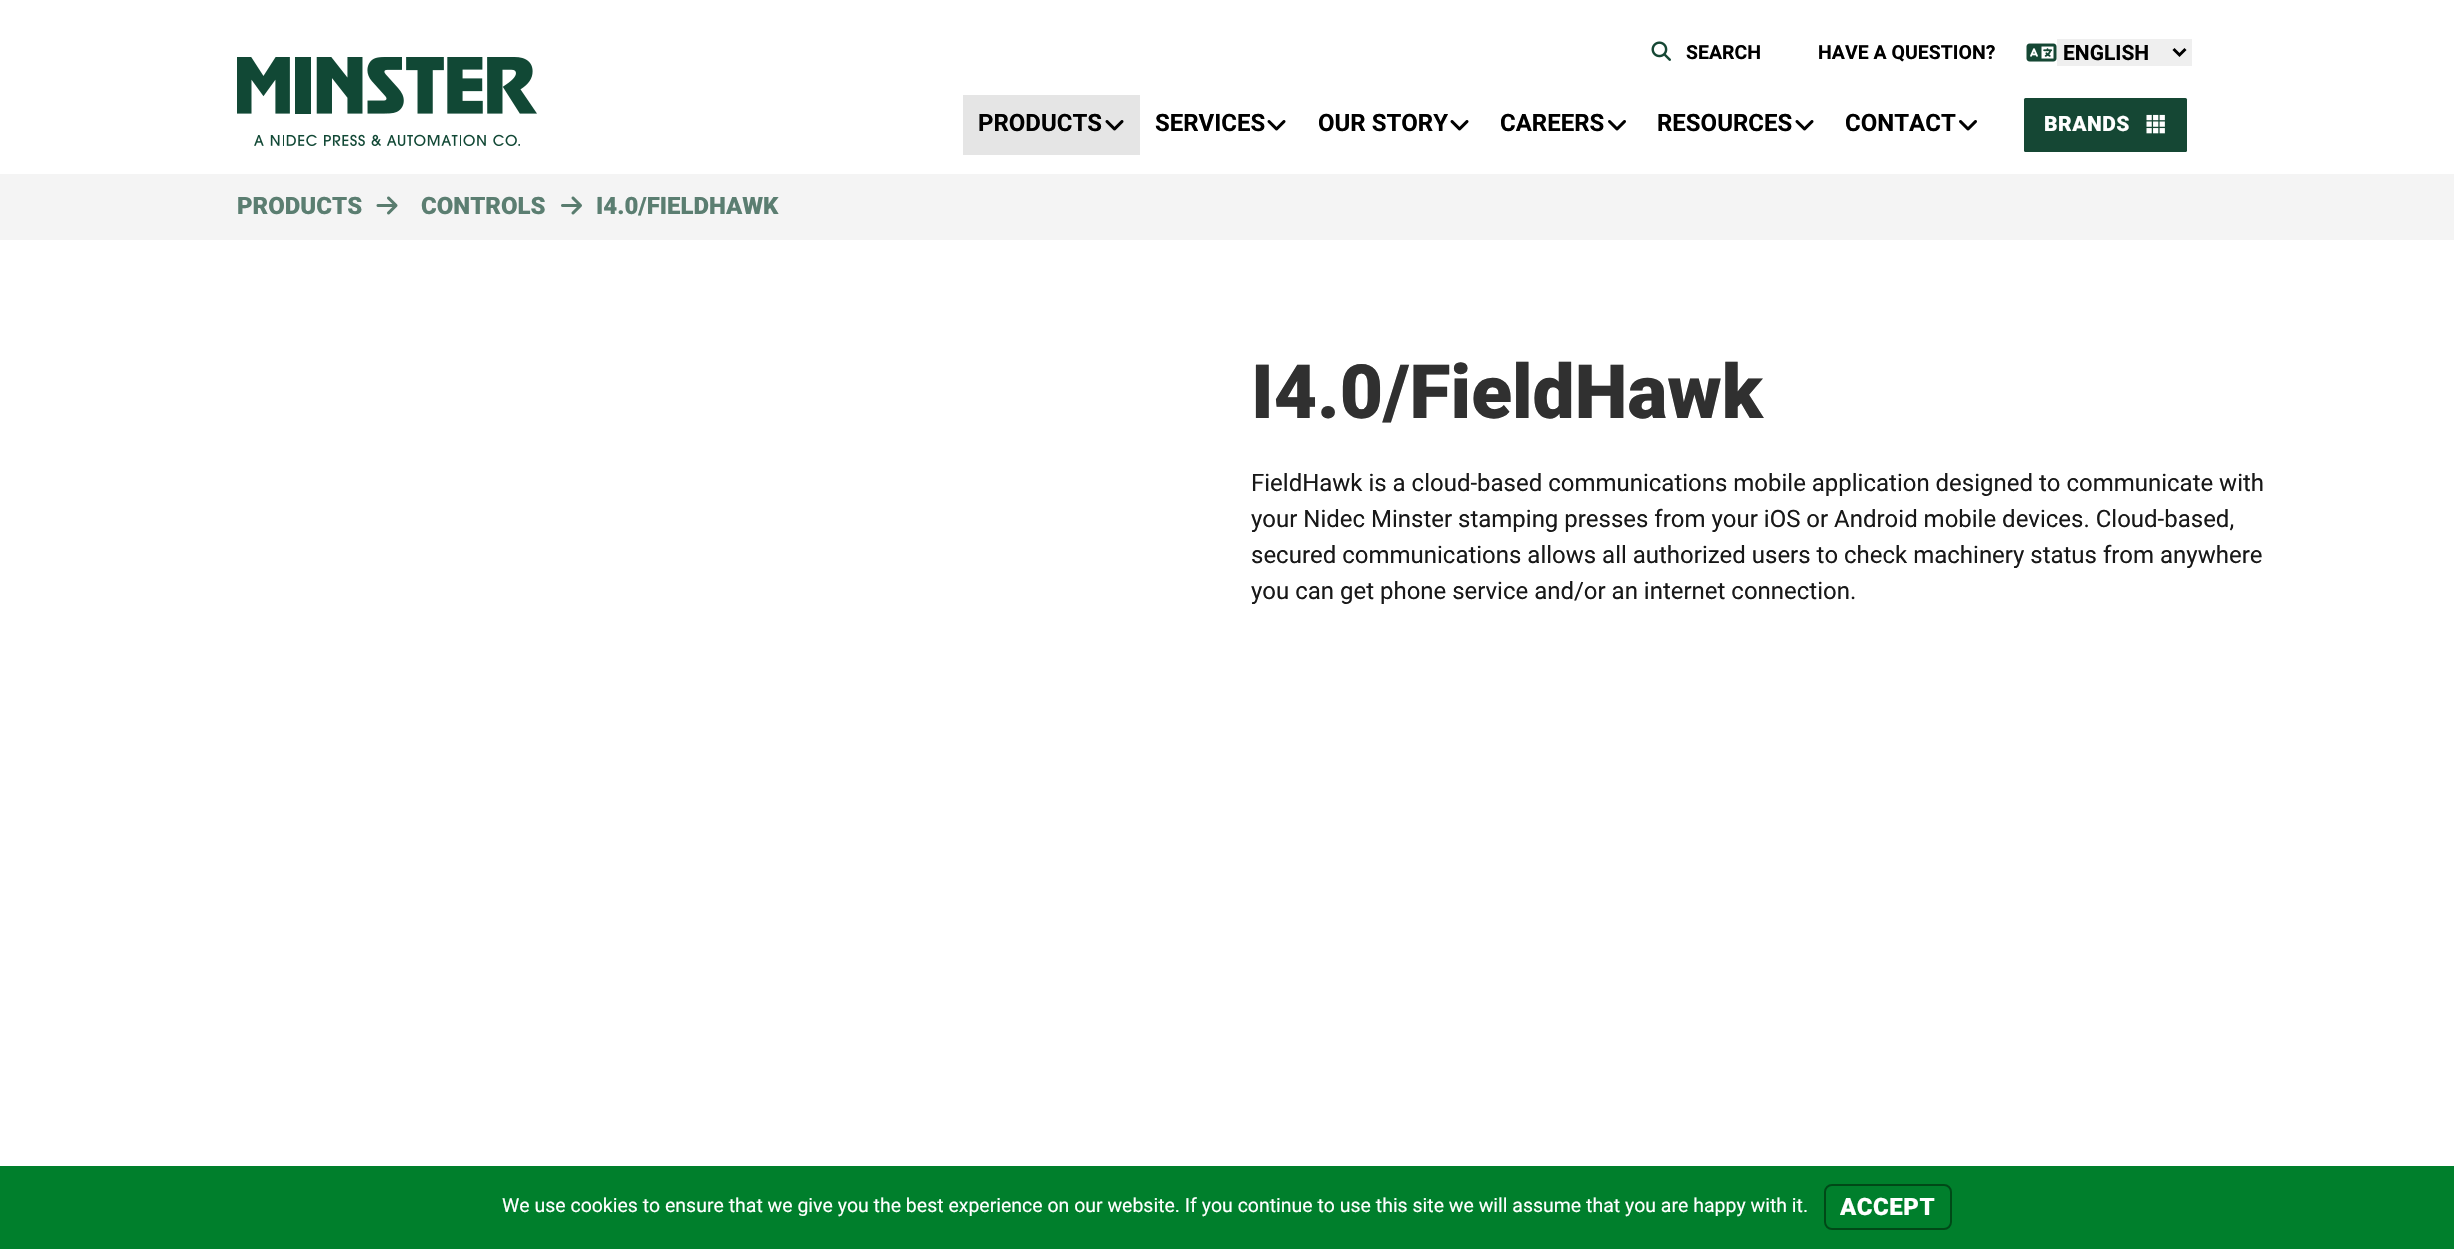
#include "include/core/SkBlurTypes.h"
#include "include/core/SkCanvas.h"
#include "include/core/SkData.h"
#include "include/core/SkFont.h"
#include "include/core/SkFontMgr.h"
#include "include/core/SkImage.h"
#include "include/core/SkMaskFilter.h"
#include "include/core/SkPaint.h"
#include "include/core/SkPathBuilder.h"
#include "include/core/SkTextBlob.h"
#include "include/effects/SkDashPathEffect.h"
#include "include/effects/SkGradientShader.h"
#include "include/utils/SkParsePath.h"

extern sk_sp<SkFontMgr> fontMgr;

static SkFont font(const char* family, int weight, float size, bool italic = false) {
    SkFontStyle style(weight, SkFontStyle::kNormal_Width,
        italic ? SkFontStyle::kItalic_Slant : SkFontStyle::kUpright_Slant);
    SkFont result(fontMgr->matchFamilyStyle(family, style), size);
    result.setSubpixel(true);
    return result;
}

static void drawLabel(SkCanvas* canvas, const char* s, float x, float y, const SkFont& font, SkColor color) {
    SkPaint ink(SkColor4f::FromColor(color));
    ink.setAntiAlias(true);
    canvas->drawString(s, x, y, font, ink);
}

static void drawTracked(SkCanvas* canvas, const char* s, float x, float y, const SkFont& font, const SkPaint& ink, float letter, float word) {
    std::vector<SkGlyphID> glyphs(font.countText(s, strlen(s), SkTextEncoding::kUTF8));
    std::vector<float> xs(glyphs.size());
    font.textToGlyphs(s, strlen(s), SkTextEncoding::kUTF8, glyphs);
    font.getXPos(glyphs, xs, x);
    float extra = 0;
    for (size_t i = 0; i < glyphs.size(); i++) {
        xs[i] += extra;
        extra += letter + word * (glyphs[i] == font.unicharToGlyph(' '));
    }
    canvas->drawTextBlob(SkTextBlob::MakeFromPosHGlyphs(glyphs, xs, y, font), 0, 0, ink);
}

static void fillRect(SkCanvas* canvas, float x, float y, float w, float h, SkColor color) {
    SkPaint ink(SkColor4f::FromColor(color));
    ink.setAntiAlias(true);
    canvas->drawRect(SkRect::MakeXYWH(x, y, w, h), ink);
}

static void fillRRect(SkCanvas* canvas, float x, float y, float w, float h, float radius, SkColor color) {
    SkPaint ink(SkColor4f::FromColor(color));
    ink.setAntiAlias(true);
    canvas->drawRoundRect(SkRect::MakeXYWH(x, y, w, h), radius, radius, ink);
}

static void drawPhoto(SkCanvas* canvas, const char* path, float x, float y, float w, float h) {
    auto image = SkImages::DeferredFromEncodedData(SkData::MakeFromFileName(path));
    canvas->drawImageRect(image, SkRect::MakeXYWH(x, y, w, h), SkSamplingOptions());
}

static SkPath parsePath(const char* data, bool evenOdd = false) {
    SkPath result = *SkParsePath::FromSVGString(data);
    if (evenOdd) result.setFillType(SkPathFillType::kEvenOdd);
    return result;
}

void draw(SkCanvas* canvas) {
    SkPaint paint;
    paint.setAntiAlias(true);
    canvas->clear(0xFFFFFFFF);
    drawPhoto(canvas, "assets/img1.png", 1651, 41, 20, 20);
    SkFont font1 = font("Roboto", 700, 19.5f);
    drawLabel(canvas, "SEARCH", 1686, 59, font1, 0xFF000000);
    drawLabel(canvas, "HAVE A QUESTION?", 1818, 59, font1, 0xFF000000);
    drawPhoto(canvas, "assets/img2.png", 2026, 43, 31, 19);
    fillRect(canvas, 2057, 39, 135, 27, 0xFFEFEFEF);
    paint.setStroke(true);
    paint.setStrokeWidth(3);
    paint.setColor(0xFF000000);
    canvas->drawPath(parsePath("M2173.5 49L2179.5 55L2185.5 49"), paint);
    SkFont font2 = font("Roboto", 700, 21);
    drawLabel(canvas, "ENGLISH", 2063, 60, font2, 0xFF000000);
    drawPhoto(canvas, "assets/img3.png", 237, 57, 300, 89);
    fillRect(canvas, 963, 95, 177, 60, 0xFFE5E5E5);
    SkFont font3 = font("Roboto", 700, 24);
    drawLabel(canvas, "PRODUCTS", 978, 131, font3, 0xFF000000);
    drawPhoto(canvas, "assets/img4.png", 1105, 120, 19, 11);
    drawLabel(canvas, "SERVICES", 1155, 131, font3, 0xFF000000);
    drawPhoto(canvas, "assets/img5.png", 1267, 120, 19, 11);
    drawLabel(canvas, "OUR STORY", 1318, 131, font3, 0xFF000000);
    drawPhoto(canvas, "assets/img5.png", 1450, 120, 19, 11);
    drawLabel(canvas, "CAREERS", 1500, 131, font3, 0xFF000000);
    drawPhoto(canvas, "assets/img6.png", 1608, 120, 18, 11);
    drawLabel(canvas, "RESOURCES", 1657, 131, font3, 0xFF000000);
    drawPhoto(canvas, "assets/img5.png", 1795, 120, 19, 11);
    drawLabel(canvas, "CONTACT", 1845, 131, font3, 0xFF000000);
    drawPhoto(canvas, "assets/img6.png", 1959, 120, 18, 11);
    fillRRect(canvas, 2024, 98, 163, 54, 1.5f, 0xFF154734);
    SkFont font4 = font("Roboto", 900, 21);
    paint.setStroke(false);
    paint.setColor(0xFFFFFFFF);
    drawTracked(canvas, "BRANDS", 2044, 131, font4, paint, 0.5f, 0);
    drawPhoto(canvas, "assets/img7.png", 2146, 114, 19, 20);
    fillRect(canvas, 0, 174, 2454, 66, 0xFFF4F4F4);
    SkFont font5 = font("Roboto", 900, 24);
    drawLabel(canvas, "PRODUCTS", 237, 214, font5, 0xFF5B7E71);
    drawPhoto(canvas, "assets/img8.png", 376, 196, 22, 19);
    drawLabel(canvas, "CONTROLS", 421, 214, font5, 0xFF5B7E71);
    drawPhoto(canvas, "assets/img9.png", 561, 196, 21, 19);
    drawLabel(canvas, "I4.0/FIELDHAWK", 596, 214, font5, 0xFF5B7E71);
    SkFont font6 = font("Roboto", 900, 75);
    drawLabel(canvas, "I4.0/FieldHawk", 1251, 418, font6, 0xFF303030);
    SkFont font7 = font("Roboto", 400, 24);
    drawLabel(canvas, "FieldHawk is a cloud-based communications mobile application designed to communicate with", 1251, 491, font7, 0xFF181818);
    drawLabel(canvas, "your Nidec Minster stamping presses from your iOS or Android mobile devices. Cloud-based,", 1251, 527, font7, 0xFF181818);
    drawLabel(canvas, "secured communications allows all authorized users to check machinery status from anywhere", 1251, 563, font7, 0xFF181818);
    drawLabel(canvas, "you can get phone service and/or an internet connection.", 1251, 599, font7, 0xFF181818);
    fillRect(canvas, 0, 1166, 2454, 83, 0xFF007F2C);
    SkFont font8 = font("Roboto", 400, 19.5f);
    drawLabel(canvas, "We use cookies to ensure that we give you the best experience on our website. If you continue to use this site we will assume that you are happy with it.", 502, 1212, font8, 0xFFFFFFFF);
    paint.setStroke(true);
    paint.setStrokeWidth(2);
    paint.setColor(0xFF004917);
    canvas->drawRoundRect(SkRect::MakeXYWH(1825, 1185, 126, 44), 7, 7, paint);
    paint.setStroke(false);
    paint.setColor(0xFFFFFFFF);
    drawTracked(canvas, "ACCEPT", 1840, 1215, font5, paint, 0.5f, 0);
}
